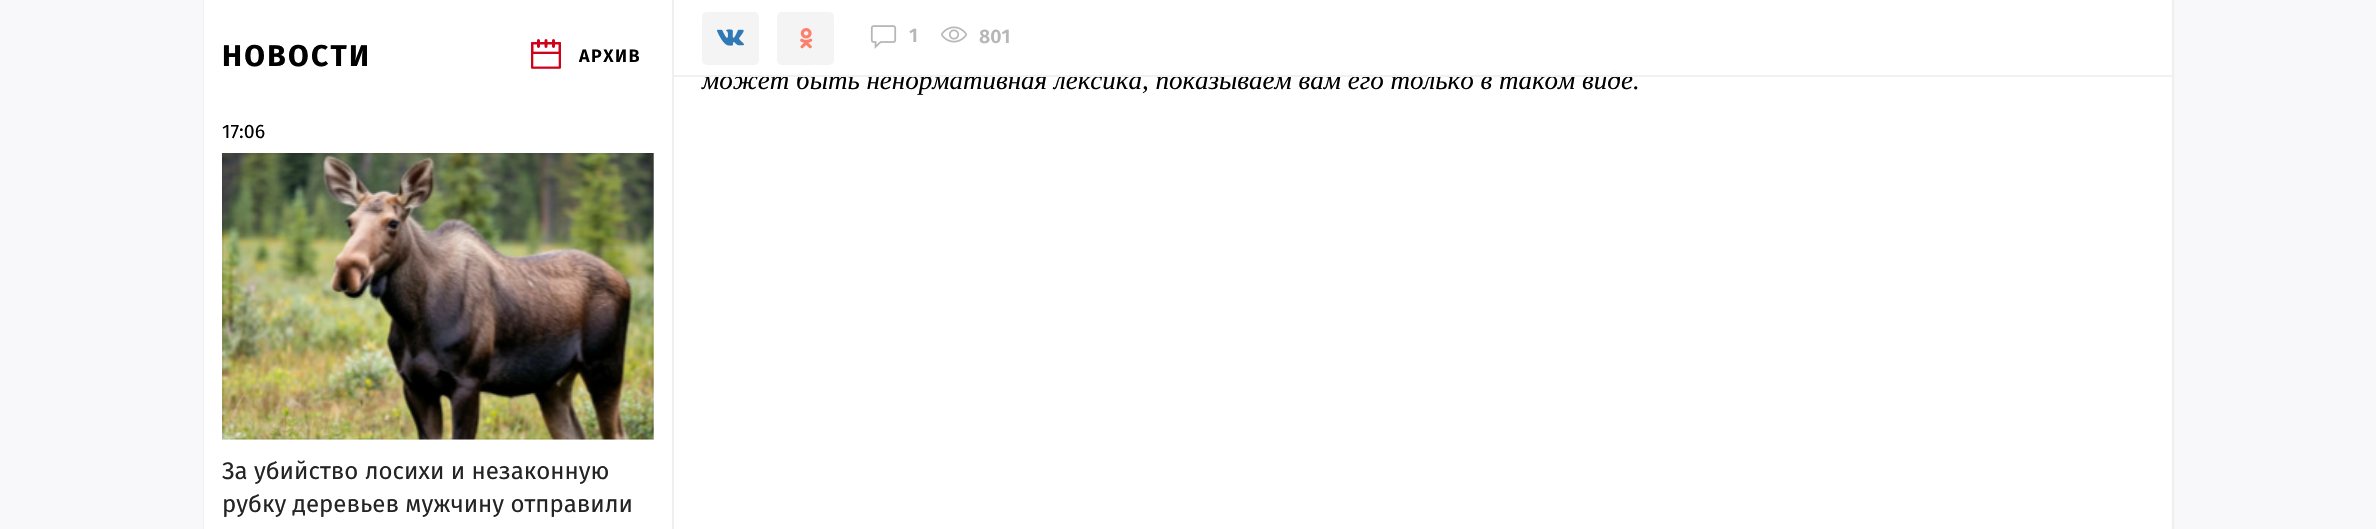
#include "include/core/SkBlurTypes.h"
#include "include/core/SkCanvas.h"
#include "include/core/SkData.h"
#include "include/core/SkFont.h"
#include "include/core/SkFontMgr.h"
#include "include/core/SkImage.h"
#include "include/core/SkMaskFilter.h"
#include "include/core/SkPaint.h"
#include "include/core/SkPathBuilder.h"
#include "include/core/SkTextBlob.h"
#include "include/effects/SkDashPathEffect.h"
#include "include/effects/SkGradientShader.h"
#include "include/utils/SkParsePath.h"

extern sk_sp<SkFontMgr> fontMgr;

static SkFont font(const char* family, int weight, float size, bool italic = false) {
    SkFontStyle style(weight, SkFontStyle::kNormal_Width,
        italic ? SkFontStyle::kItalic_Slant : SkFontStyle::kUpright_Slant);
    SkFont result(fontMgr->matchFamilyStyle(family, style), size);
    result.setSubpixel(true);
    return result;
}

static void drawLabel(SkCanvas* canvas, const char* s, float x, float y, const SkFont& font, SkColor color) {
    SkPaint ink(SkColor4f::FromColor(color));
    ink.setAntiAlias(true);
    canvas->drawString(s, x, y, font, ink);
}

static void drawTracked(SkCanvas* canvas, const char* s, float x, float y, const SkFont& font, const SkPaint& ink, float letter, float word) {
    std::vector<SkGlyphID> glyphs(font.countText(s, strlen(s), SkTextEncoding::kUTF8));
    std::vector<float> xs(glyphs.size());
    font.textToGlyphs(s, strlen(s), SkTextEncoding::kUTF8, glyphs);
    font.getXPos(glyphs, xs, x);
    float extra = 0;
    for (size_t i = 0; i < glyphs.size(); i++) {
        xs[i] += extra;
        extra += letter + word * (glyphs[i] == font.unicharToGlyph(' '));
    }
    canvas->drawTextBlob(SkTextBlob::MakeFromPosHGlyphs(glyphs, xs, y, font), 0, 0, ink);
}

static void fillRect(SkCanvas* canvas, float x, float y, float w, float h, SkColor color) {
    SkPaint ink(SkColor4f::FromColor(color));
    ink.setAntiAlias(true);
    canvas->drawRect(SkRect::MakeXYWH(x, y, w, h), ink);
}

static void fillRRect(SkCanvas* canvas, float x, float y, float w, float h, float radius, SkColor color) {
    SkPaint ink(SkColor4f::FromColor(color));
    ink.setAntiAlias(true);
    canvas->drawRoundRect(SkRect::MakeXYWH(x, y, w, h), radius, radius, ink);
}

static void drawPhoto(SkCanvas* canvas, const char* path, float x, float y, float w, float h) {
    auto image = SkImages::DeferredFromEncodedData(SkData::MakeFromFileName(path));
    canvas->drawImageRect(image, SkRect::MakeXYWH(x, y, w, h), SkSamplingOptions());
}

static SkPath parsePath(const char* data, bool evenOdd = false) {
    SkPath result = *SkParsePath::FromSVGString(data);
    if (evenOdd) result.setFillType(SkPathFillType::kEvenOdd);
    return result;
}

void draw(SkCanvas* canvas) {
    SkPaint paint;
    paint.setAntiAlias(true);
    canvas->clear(0xFFF8F8FA);
    fillRect(canvas, 203, 0, 1, 529, 0xFFEFEFEF);
    fillRect(canvas, 2172, 0, 2, 529, 0xFFEFEFEF);
    fillRect(canvas, 204, 0, 1968, 529, 0xFFFFFFFF);
    paint.setColor(0xFFEFEFEF);
    canvas->drawPath(parsePath("M206 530H674V0H672V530Z"), paint);
    SkFont font1 = font("Fira Sans", 700, 30);
    paint.setColor(0xFF000000);
    drawTracked(canvas, "НОВОСТИ", 222, 66, font1, paint, 2.25f, 0);
    drawPhoto(canvas, "assets/img1.png", 531, 39, 30, 30);
    SkFont font2 = font("Fira Sans", 600, 18);
    drawTracked(canvas, "АРХИВ", 579, 62, font2, paint, 1.5f, 0);
    SkFont font3 = font("Fira Sans", 400, 19.5f);
    drawLabel(canvas, "17:06", 222, 138, font3, 0xFF000000);
    drawPhoto(canvas, "assets/img2.png", 222, 153, 432, 287);
    paint.setStroke(true);
    paint.setStrokeWidth(2);
    paint.setColor(0x0D000000);
    canvas->drawRect(SkRect::MakeXYWH(223, 154, 430, 285), paint);
    SkFont font4 = font("Fira Sans", 400, 24);
    drawLabel(canvas, "За убийство лосихи и незаконную", 222, 479, font4, 0xFF242424);
    drawLabel(canvas, "рубку деревьев мужчину отправили", 222, 512, font4, 0xFF242424);
    fillRRect(canvas, 702, 12, 57, 53, 5, 0xFFF4F4F4);
    drawPhoto(canvas, "assets/img3.png", 717, 29, 27, 17);
    fillRRect(canvas, 777, 12, 57, 53, 5, 0xFFF4F4F4);
    drawPhoto(canvas, "assets/img4.png", 800, 28, 13, 21);
    drawPhoto(canvas, "assets/img5.png", 870, 25, 27, 24);
    SkFont font5 = font("Fira Sans", 600, 19.5f);
    drawLabel(canvas, "1", 909, 42, font5, 0xFFB7B7B7);
    drawPhoto(canvas, "assets/img6.png", 941, 26, 26, 17);
    drawLabel(canvas, "801", 979, 43, font5, 0xFFB7B7B7);
    SkFont font6 = font("Liberation Serif", 400, 27, true);
    drawLabel(canvas, "может быть ненормативная лексика, показываем вам его только в таком виде.", 702, 89, font6, 0xFF000000);
    fillRect(canvas, 799, 69, 821, 6, 0xFAFFFFFF);
    fillRect(canvas, 674, 75, 1498, 2, 0xFFF1F1F1);
}
